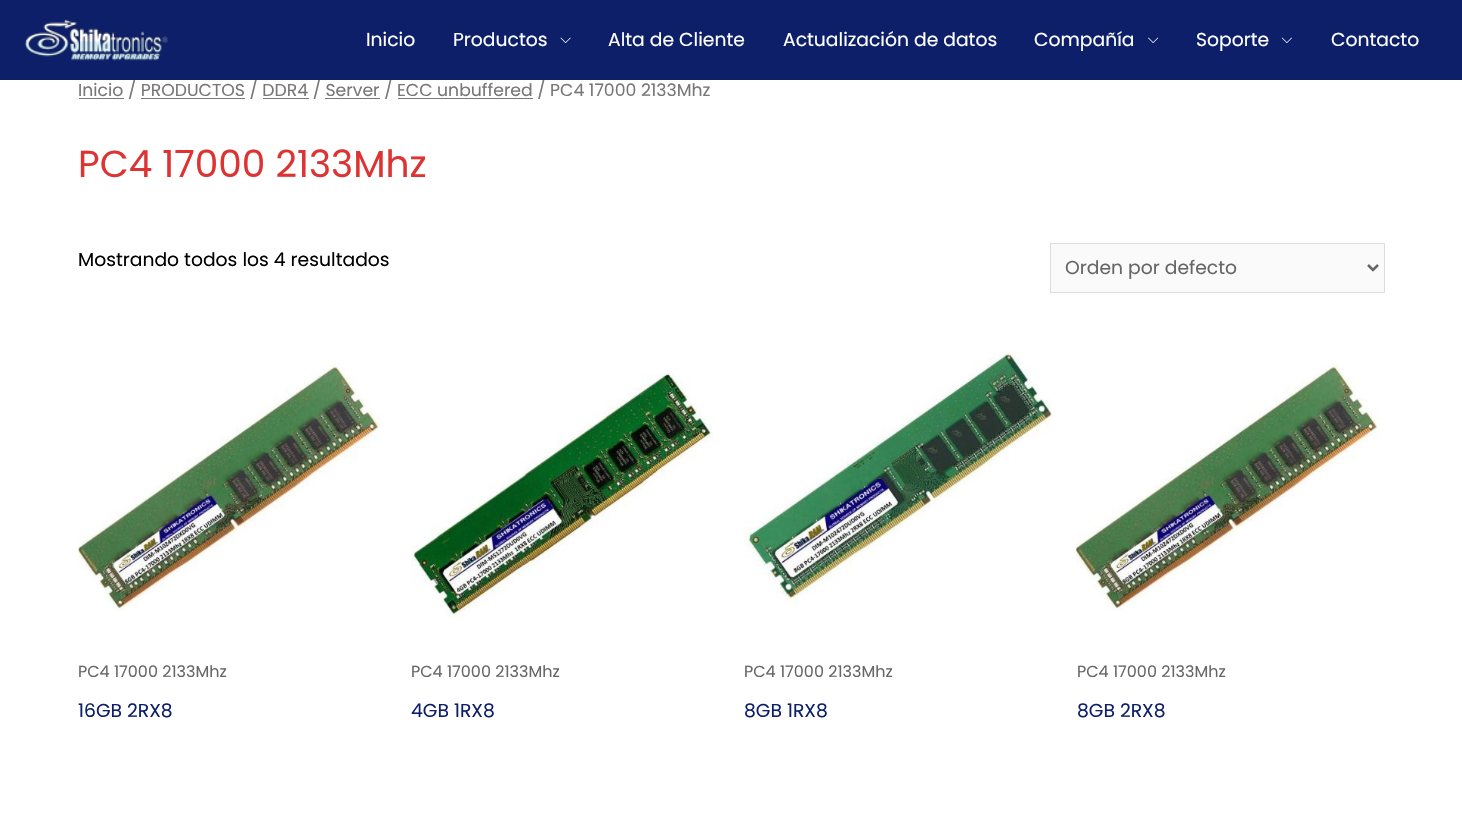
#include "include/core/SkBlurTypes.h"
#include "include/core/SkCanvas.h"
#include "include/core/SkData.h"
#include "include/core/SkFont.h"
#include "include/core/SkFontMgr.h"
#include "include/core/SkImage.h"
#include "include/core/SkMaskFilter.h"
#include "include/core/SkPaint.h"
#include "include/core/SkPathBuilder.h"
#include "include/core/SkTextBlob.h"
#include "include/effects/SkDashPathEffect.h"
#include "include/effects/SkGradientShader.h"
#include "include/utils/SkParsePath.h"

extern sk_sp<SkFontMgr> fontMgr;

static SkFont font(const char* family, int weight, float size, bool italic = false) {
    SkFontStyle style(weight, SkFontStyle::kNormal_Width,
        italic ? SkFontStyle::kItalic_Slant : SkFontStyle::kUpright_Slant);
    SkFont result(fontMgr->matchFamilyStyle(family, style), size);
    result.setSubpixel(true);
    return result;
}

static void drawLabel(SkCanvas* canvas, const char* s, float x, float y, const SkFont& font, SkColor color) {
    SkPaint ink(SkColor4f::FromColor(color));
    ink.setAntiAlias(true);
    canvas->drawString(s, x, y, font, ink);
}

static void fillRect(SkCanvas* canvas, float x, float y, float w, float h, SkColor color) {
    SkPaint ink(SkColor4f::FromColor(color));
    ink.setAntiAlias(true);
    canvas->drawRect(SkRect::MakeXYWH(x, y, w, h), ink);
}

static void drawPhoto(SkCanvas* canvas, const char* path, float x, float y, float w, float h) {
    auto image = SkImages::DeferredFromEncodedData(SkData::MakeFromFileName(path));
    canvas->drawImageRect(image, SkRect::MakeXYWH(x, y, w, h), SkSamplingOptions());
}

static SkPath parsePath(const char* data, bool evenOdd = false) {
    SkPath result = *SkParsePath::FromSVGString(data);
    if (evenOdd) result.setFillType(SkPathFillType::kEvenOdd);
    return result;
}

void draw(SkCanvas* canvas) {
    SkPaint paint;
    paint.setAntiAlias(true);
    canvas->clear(0xFFFFFFFF);
    fillRect(canvas, 79, 98, 45, 1, 0xFF777777);
    SkFont font1 = font("Poppins", 400, 17.25f);
    drawLabel(canvas, "Inicio / PRODUCTOS / DDR4 / Server / ECC unbuffered / PC4 17000 2133Mhz", 78, 96, font1, 0xFF777777);
    fillRect(canvas, 0, 0, 1462, 80, 0xFF0E1F6A);
    drawPhoto(canvas, "assets/img1.png", 25, 19, 143, 42);
    SkFont font2 = font("Poppins", 400, 18.75f);
    drawLabel(canvas, "Inicio", 366, 46, font2, 0xFFFFFFFF);
    drawLabel(canvas, "Productos", 453, 46, font2, 0xFFFFFFFF);
    drawPhoto(canvas, "assets/img2.png", 560, 37, 11, 6);
    drawLabel(canvas, "Alta de Cliente", 608, 46, font2, 0xFFFFFFFF);
    drawLabel(canvas, "Actualización de datos", 783, 46, font2, 0xFFFFFFFF);
    drawLabel(canvas, "Compañía", 1034, 46, font2, 0xFFFFFFFF);
    drawPhoto(canvas, "assets/img3.png", 1148, 37, 11, 6);
    drawLabel(canvas, "Soporte", 1196, 46, font2, 0xFFFFFFFF);
    drawPhoto(canvas, "assets/img4.png", 1281, 37, 11, 6);
    drawLabel(canvas, "Contacto", 1331, 46, font2, 0xFFFFFFFF);
    fillRect(canvas, 141, 98, 104, 1, 0xFF777777);
    fillRect(canvas, 263, 98, 46, 1, 0xFF777777);
    fillRect(canvas, 325, 98, 55, 1, 0xFF777777);
    fillRect(canvas, 398, 98, 135, 1, 0xFF777777);
    SkFont font3 = font("Poppins", 400, 37.5f);
    drawLabel(canvas, "PC4 17000 2133Mhz", 78, 177, font3, 0xFFDD3333);
    drawLabel(canvas, "Mostrando todos los 4 resultados", 78, 266, font2, 0xFF000000);
    paint.setColor(0xFFFAFAFA);
    canvas->drawRect(SkRect::MakeXYWH(1050.5f, 243.5f, 334, 49), paint);
    paint.setStroke(true);
    paint.setStrokeWidth(1);
    paint.setColor(0xFFDDDDDD);
    canvas->drawRect(SkRect::MakeXYWH(1050.5f, 243.5f, 334, 49), paint);
    paint.setStrokeWidth(2.5f);
    paint.setColor(0xFF666666);
    canvas->drawPath(parsePath("M1368 265L1373 270L1378 265"), paint);
    drawLabel(canvas, "Orden por defecto", 1065, 274, font2, 0xFF666666);
    drawPhoto(canvas, "assets/img5.png", 78, 363, 303, 249);
    SkFont font4 = font("Poppins", 400, 16);
    drawLabel(canvas, "PC4 17000 2133Mhz", 78, 677, font4, 0xFF666666);
    drawLabel(canvas, "16GB 2RX8", 78, 717, font2, 0xFF0E1F6A);
    drawPhoto(canvas, "assets/img6.png", 411, 373, 303, 245);
    drawLabel(canvas, "PC4 17000 2133Mhz", 411, 677, font4, 0xFF666666);
    drawLabel(canvas, "4GB 1RX8", 411, 717, font2, 0xFF0E1F6A);
    drawPhoto(canvas, "assets/img7.png", 744, 351, 308, 255);
    drawLabel(canvas, "PC4 17000 2133Mhz", 744, 677, font4, 0xFF666666);
    drawLabel(canvas, "8GB 1RX8", 744, 717, font2, 0xFF0E1F6A);
    drawPhoto(canvas, "assets/img8.png", 1076, 363, 304, 249);
    drawLabel(canvas, "PC4 17000 2133Mhz", 1077, 677, font4, 0xFF666666);
    drawLabel(canvas, "8GB 2RX8", 1077, 717, font2, 0xFF0E1F6A);
}
